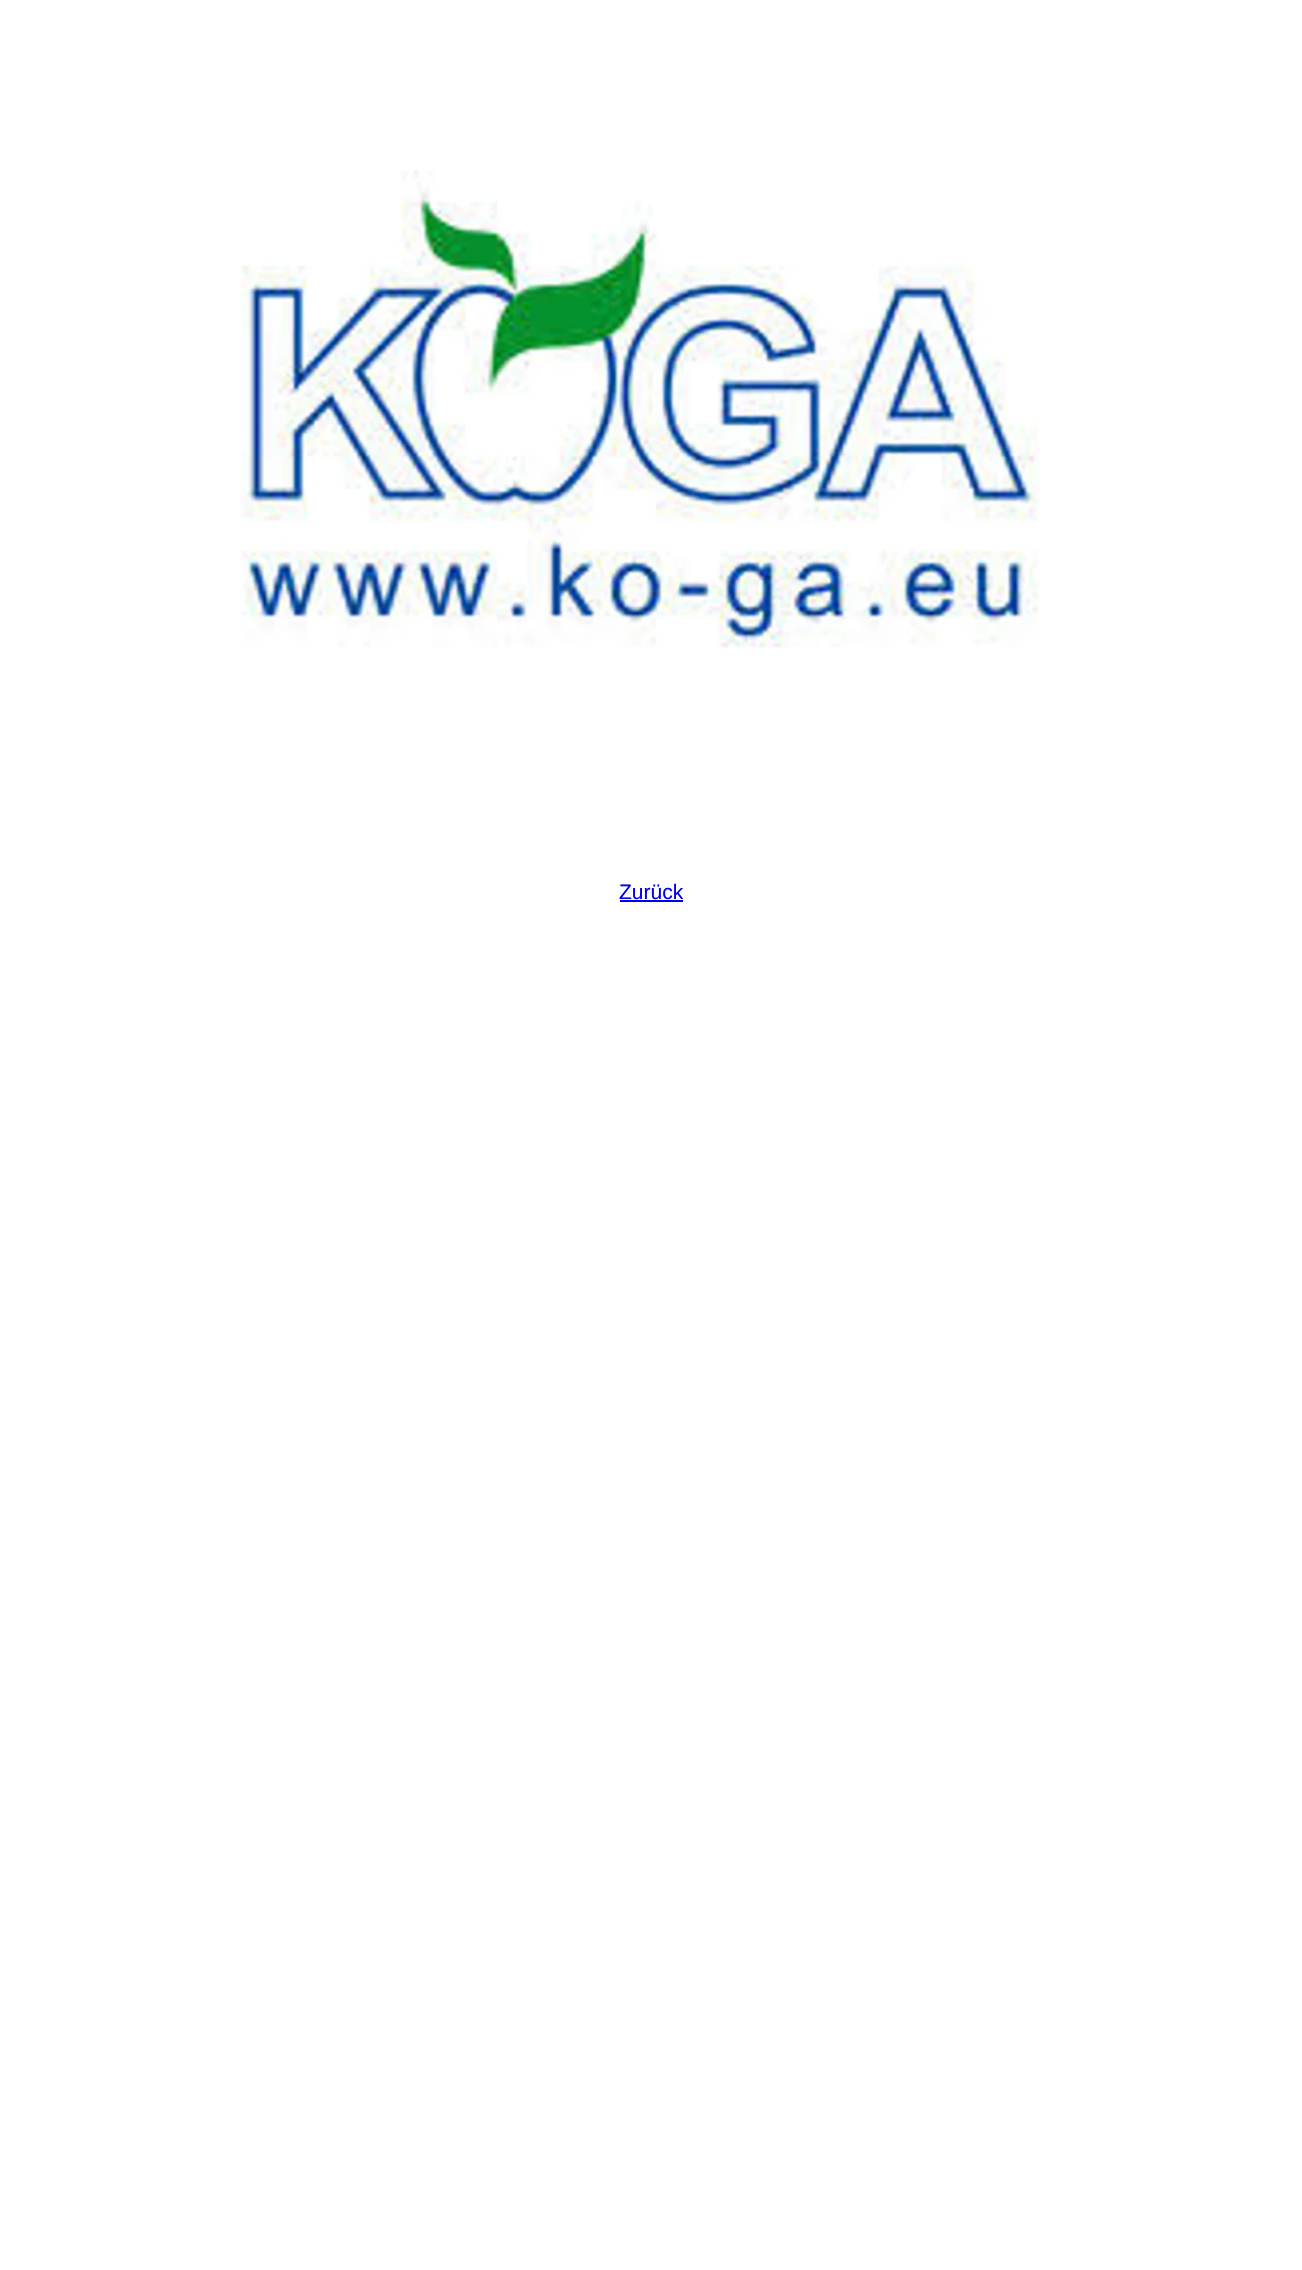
#include "include/core/SkBlurTypes.h"
#include "include/core/SkCanvas.h"
#include "include/core/SkData.h"
#include "include/core/SkFont.h"
#include "include/core/SkFontMgr.h"
#include "include/core/SkImage.h"
#include "include/core/SkMaskFilter.h"
#include "include/core/SkPaint.h"
#include "include/core/SkPathBuilder.h"
#include "include/core/SkTextBlob.h"
#include "include/effects/SkDashPathEffect.h"
#include "include/effects/SkGradientShader.h"
#include "include/utils/SkParsePath.h"

extern sk_sp<SkFontMgr> fontMgr;

static SkFont font(const char* family, int weight, float size, bool italic = false) {
    SkFontStyle style(weight, SkFontStyle::kNormal_Width,
        italic ? SkFontStyle::kItalic_Slant : SkFontStyle::kUpright_Slant);
    SkFont result(fontMgr->matchFamilyStyle(family, style), size);
    result.setSubpixel(true);
    return result;
}

static void drawLabel(SkCanvas* canvas, const char* s, float x, float y, const SkFont& font, SkColor color) {
    SkPaint ink(SkColor4f::FromColor(color));
    ink.setAntiAlias(true);
    canvas->drawString(s, x, y, font, ink);
}

static void fillRect(SkCanvas* canvas, float x, float y, float w, float h, SkColor color) {
    SkPaint ink(SkColor4f::FromColor(color));
    ink.setAntiAlias(true);
    canvas->drawRect(SkRect::MakeXYWH(x, y, w, h), ink);
}

static void drawPhoto(SkCanvas* canvas, const char* path, float x, float y, float w, float h) {
    auto image = SkImages::DeferredFromEncodedData(SkData::MakeFromFileName(path));
    canvas->drawImageRect(image, SkRect::MakeXYWH(x, y, w, h), SkSamplingOptions());
}

void draw(SkCanvas* canvas) {
    SkPaint paint;
    paint.setAntiAlias(true);
    canvas->clear(0xFFFFFFFF);
    drawPhoto(canvas, "assets/img1.png", 240, 170, 800, 479);
    SkFont font1 = font("Liberation Sans", 400, 21);
    drawLabel(canvas, "Zurück", 619, 899, font1, 0xFF0000EE);
    fillRect(canvas, 620, 900, 63, 2, 0xFF0000EE);
}
